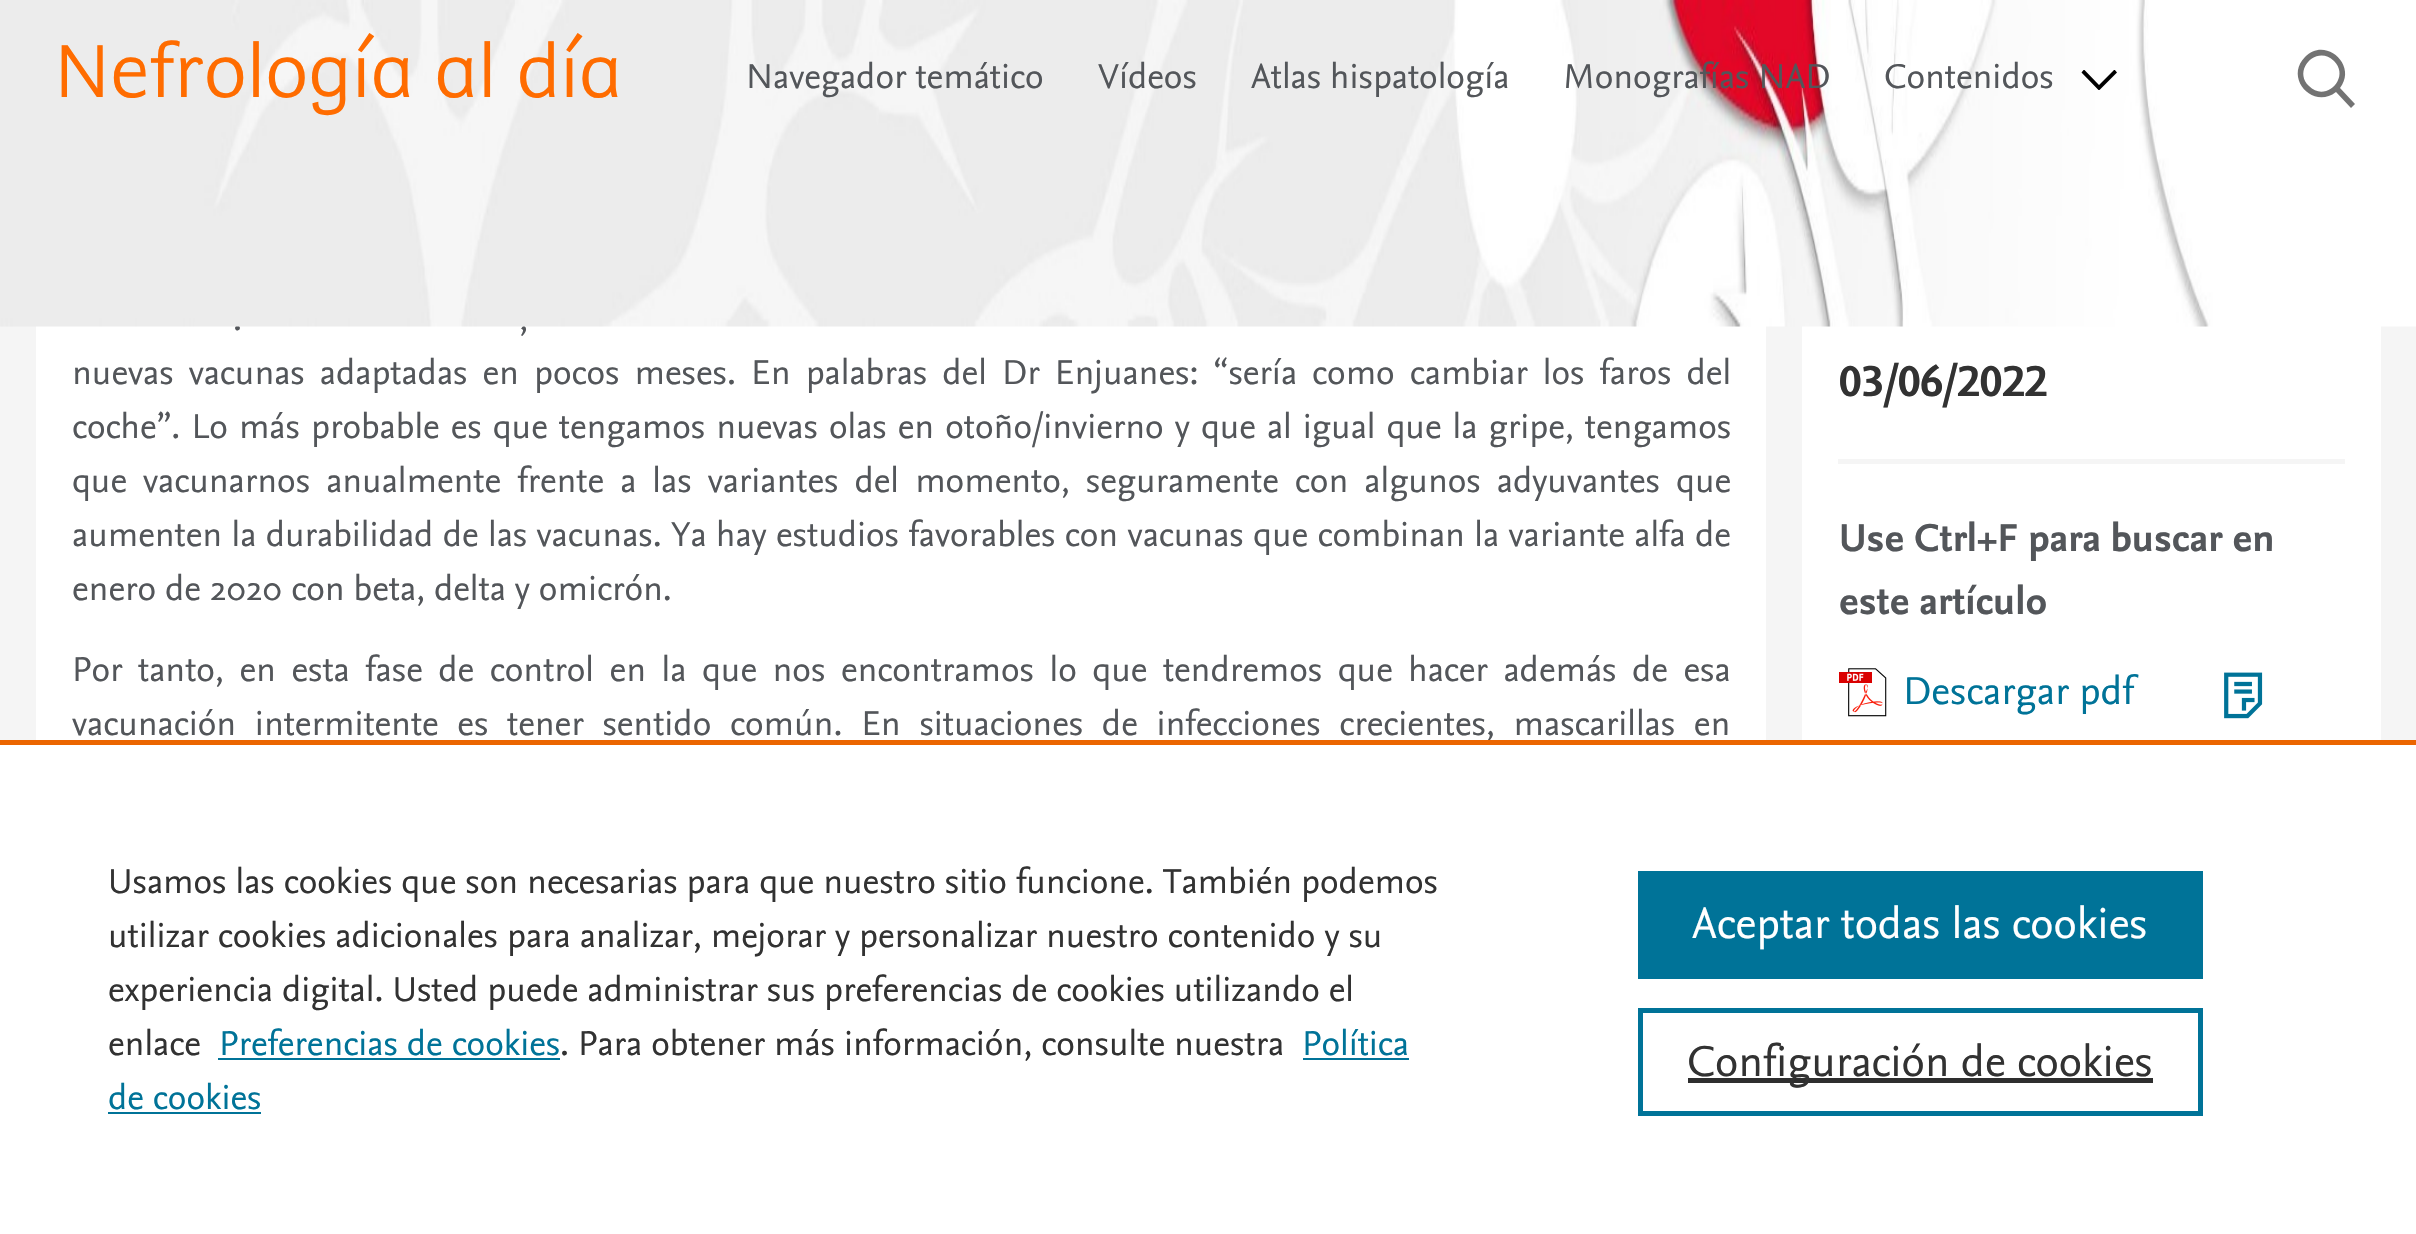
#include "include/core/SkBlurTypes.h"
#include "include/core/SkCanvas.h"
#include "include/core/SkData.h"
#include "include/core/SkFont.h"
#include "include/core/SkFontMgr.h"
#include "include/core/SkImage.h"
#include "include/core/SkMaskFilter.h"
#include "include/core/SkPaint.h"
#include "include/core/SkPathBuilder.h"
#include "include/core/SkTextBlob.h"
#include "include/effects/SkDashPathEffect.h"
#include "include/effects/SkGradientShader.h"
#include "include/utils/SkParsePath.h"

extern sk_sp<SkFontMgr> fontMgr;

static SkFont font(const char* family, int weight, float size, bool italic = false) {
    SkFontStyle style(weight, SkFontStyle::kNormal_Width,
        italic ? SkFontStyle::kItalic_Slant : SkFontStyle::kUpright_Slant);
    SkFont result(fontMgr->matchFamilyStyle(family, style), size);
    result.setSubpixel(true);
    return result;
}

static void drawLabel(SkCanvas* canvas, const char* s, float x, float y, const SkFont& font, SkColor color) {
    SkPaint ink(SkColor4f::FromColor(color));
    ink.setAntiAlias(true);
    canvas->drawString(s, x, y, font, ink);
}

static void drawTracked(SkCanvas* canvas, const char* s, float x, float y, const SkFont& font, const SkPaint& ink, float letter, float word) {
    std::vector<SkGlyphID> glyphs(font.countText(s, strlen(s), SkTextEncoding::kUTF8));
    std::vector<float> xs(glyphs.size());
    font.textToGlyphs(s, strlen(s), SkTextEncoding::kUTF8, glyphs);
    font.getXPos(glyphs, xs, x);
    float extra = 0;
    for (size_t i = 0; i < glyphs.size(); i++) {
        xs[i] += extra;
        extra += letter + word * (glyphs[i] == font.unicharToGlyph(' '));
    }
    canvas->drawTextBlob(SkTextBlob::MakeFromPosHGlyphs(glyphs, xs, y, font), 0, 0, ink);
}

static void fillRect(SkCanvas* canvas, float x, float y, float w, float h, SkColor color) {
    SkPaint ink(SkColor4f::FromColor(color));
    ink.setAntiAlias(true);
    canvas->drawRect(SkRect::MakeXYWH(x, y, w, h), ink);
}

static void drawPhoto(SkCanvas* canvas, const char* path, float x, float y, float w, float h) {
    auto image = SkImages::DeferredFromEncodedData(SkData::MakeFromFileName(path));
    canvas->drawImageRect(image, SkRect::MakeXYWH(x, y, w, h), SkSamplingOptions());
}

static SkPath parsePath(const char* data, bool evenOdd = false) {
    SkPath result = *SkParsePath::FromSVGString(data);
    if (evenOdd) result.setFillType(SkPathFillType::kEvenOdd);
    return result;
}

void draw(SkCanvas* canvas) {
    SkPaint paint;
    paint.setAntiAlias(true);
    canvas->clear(0xFFF5F5F5);
    fillRect(canvas, 36, 326, 1730, 414, 0xFFFFFFFF);
    SkFont font1 = font("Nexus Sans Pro", 400, 36);
    paint.setColor(0xFF53565A);
    drawTracked(canvas, ".", 233, 330, font1, paint, 0, 4);
    drawTracked(canvas, ",", 519, 330, font1, paint, 0, 4);
    fillRect(canvas, 1802, 326, 579, 414, 0xFFFFFFFF);
    drawPhoto(canvas, "assets/img1.png", 0, 0, 2416, 327);
    SkFont font2 = font("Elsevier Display", 300, 85.5f);
    drawLabel(canvas, "Nefrología al día", 54, 97, font2, 0xFFFF6C00);
    drawLabel(canvas, "Navegador temático", 746, 88, font1, 0xFF53565A);
    drawLabel(canvas, "Vídeos", 1098, 88, font1, 0xFF53565A);
    drawLabel(canvas, "Atlas hispatología", 1251, 88, font1, 0xFF53565A);
    drawLabel(canvas, "Monografías NAD", 1563, 88, font1, 0xFF53565A);
    drawLabel(canvas, "Contenidos", 1884, 88, font1, 0xFF53565A);
    canvas->save();
    canvas->clipRect(SkRect::MakeXYWH(2081, 70, 36, 20));
    paint.setColor(0xFF000000);
    canvas->drawPath(parsePath("M2081.5 72.5L2084 69.5L2099 85L2114.5 69.5L2117 72.5L2099 90.5Z"), paint);
    canvas->restore();
    paint.setColor(0xFF737373);
    canvas->drawPath(parsePath("M2355 104L2340 88C2358 65 2325 36 2305 57C2284 78 2313 110 2336 92L2351 108ZM2309 86C2292 70 2317 44 2334 61C2351 78 2325 103 2309 86Z"), paint);
    paint.setColor(0xFF53565A);
    drawTracked(canvas, "nuevas vacunas adaptadas en pocos meses. En palabras del Dr Enjuanes: “sería como cambiar los faros del", 72, 384, font1, paint, 0, 6.1f);
    drawTracked(canvas, "coche”. Lo más probable es que tengamos nuevas olas en otoño/invierno y que al igual que la gripe, tengamos", 72, 438, font1, paint, 0, 2.1f);
    drawTracked(canvas, "que vacunarnos anualmente frente a las variantes del momento, seguramente con algunos adyuvantes que", 72, 492, font1, paint, 0, 7.1f);
    drawTracked(canvas, "aumenten la durabilidad de las vacunas. Ya hay estudios favorables con vacunas que combinan la variante alfa de", 72, 546, font1, paint, 0, 0.4f);
    drawLabel(canvas, "enero de 2020 con beta, delta y omicrón.", 72, 600, font1, 0xFF53565A);
    drawTracked(canvas, "Por tanto, en esta fase de control en la que nos encontramos lo que tendremos que hacer además de esa", 72, 681, font1, paint, 0, 6.6f);
    drawTracked(canvas, "vacunación intermitente es tener sentido común. En situaciones de infecciones crecientes, mascarillas en", 72, 735, font1, paint, 0, 9.75f);
    fillRect(canvas, 1838, 459, 507, 5, 0xFFF5F5F5);
    SkFont font3 = font("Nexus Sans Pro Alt", 700, 45);
    drawLabel(canvas, "03/06/2022", 1839, 396, font3, 0xFF323232);
    SkFont font4 = font("Nexus Sans Pro", 700, 40.5f);
    drawLabel(canvas, "Use Ctrl+F para buscar en", 1839, 551, font4, 0xFF53565A);
    drawLabel(canvas, "este artículo", 1839, 614, font4, 0xFF53565A);
    drawPhoto(canvas, "assets/img2.png", 1839, 668, 48, 49);
    SkFont font5 = font("Nexus Sans Pro", 400, 40.5f);
    drawLabel(canvas, "Descargar pdf", 1903, 704, font5, 0xFF007398);
    drawPhoto(canvas, "assets/img3.png", 2224, 672, 39, 47);
    fillRect(canvas, 0, 745, 2416, 489, 0xFFFFFFFF);
    fillRect(canvas, 0, 740, 2416, 5, 0xFFEB6500);
    drawLabel(canvas, "Usamos las cookies que son necesarias para que nuestro sitio funcione. También podemos", 108, 893, font1, 0xFF323232);
    drawLabel(canvas, "utilizar cookies adicionales para analizar, mejorar y personalizar nuestro contenido y su", 108, 947, font1, 0xFF323232);
    drawLabel(canvas, "experiencia digital. Usted puede administrar sus preferencias de cookies utilizando el", 108, 1001, font1, 0xFF323232);
    drawLabel(canvas, "enlace", 108, 1055, font1, 0xFF323232);
    drawLabel(canvas, "Preferencias de cookies", 219, 1055, font1, 0xFF007398);
    fillRect(canvas, 218, 1058, 342, 2, 0xFF007398);
    drawLabel(canvas, ". Para obtener más información, consulte nuestra", 560, 1055, font1, 0xFF323232);
    drawLabel(canvas, "Política", 1302, 1055, font1, 0xFF007398);
    fillRect(canvas, 1303, 1058, 106, 2, 0xFF007398);
    drawLabel(canvas, "de cookies", 108, 1109, font1, 0xFF007398);
    fillRect(canvas, 108, 1112, 153, 2, 0xFF007398);
    fillRect(canvas, 1638, 871, 565, 108, 0xFF007398);
    SkFont font6 = font("Nexus Sans Pro", 400, 45);
    drawLabel(canvas, "Aceptar todas las cookies", 1692, 938, font6, 0xFFFFFFFF);
    paint.setStroke(true);
    paint.setStrokeWidth(5);
    paint.setColor(0xFF007398);
    canvas->drawRect(SkRect::MakeXYWH(1640.5f, 1010.5f, 560, 103), paint);
    fillRect(canvas, 1688, 1078, 465, 5, 0xFF2E2E2E);
    drawLabel(canvas, "Configuración de cookies", 1687, 1076, font6, 0xFF323232);
}
